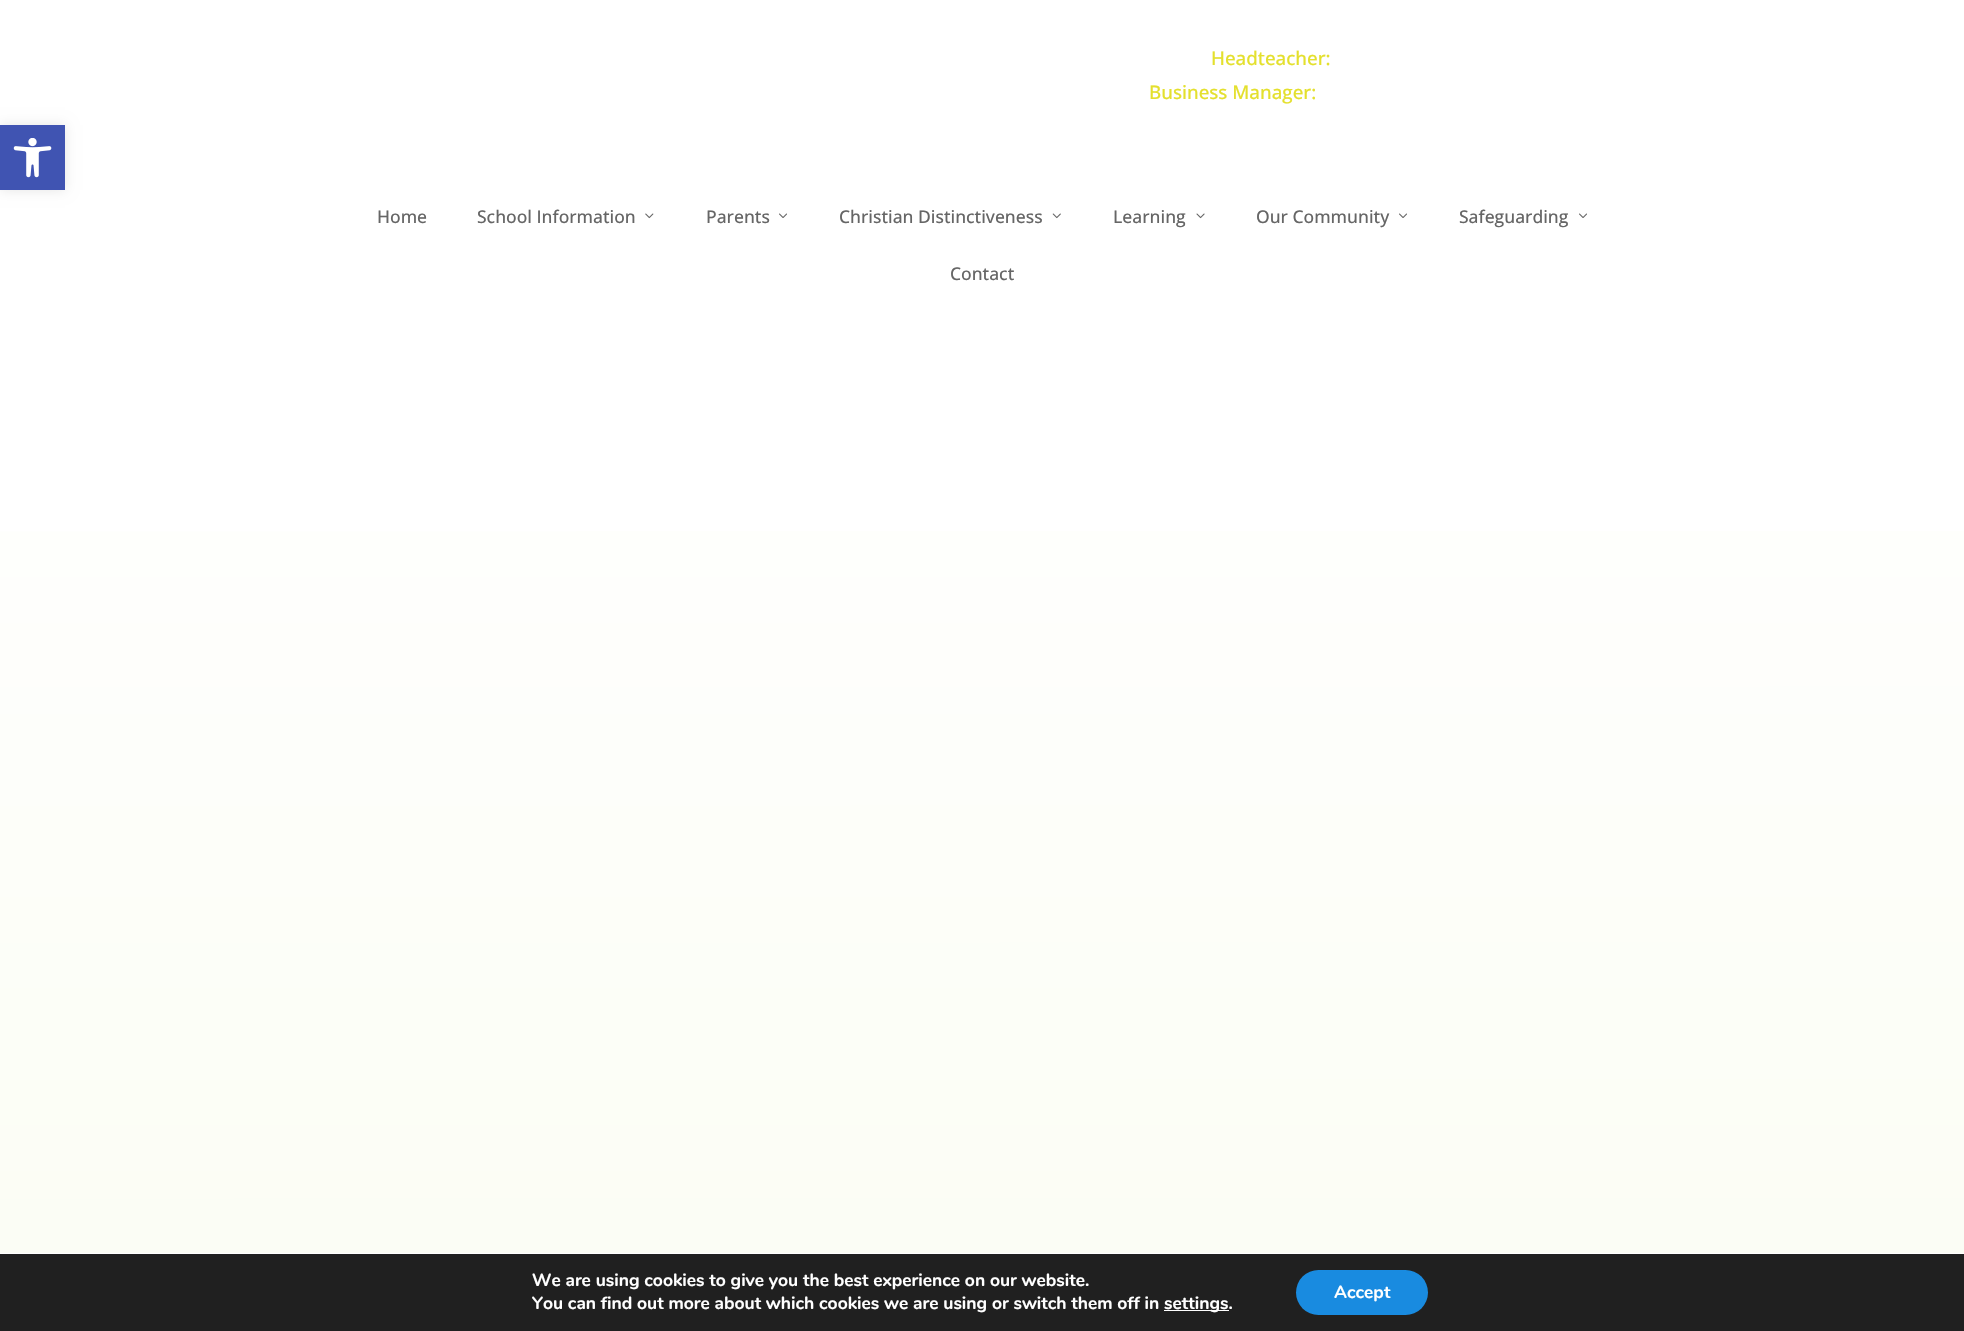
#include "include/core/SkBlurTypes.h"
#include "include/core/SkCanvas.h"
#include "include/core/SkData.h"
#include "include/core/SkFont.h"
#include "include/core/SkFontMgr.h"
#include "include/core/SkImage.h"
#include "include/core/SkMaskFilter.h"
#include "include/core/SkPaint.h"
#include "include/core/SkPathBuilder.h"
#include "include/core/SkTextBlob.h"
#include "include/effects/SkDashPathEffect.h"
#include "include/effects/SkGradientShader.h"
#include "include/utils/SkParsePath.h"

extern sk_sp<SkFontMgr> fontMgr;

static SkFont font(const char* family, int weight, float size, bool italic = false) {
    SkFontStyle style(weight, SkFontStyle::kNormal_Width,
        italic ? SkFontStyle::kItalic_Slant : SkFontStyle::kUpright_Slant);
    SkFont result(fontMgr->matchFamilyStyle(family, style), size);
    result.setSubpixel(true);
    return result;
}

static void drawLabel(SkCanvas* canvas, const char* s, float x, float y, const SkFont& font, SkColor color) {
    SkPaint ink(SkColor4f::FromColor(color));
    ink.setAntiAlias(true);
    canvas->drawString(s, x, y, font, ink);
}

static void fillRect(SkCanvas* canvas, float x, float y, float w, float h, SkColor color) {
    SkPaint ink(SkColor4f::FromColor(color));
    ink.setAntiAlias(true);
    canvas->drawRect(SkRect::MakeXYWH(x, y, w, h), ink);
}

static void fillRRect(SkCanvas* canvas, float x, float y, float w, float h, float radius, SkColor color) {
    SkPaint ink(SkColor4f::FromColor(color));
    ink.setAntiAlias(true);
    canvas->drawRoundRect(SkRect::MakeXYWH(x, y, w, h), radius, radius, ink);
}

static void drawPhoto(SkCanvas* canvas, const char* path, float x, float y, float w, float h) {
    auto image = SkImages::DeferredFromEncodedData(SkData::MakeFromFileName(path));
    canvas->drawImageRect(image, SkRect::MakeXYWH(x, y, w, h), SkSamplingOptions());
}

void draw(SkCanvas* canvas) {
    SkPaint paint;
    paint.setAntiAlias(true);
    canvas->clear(0xFFFFFFFF);
    paint.setColor(0x1A000000);
    paint.setMaskFilter(SkMaskFilter::MakeBlur(kNormal_SkBlurStyle, 6));
    canvas->drawRect(SkRect::MakeXYWH(0, 125, 65, 65), paint);
    paint.setMaskFilter(nullptr);
    fillRect(canvas, 0, 125, 65, 65, 0xFF4054B2);
    drawPhoto(canvas, "assets/img1.png", 13, 138, 39, 40);
    SkFont font1 = font("Open Sans", 500, 18.75f);
    drawLabel(canvas, "Headteacher:", 1211, 65, font1, 0xFFE4E02D);
    drawLabel(canvas, "Business Manager:", 1149, 99, font1, 0xFFE4E02D);
    SkFont font2 = font("Open Sans", 500, 17.5f);
    drawLabel(canvas, "Home", 377, 223, font2, 0xFF666666);
    drawLabel(canvas, "School Information", 477, 223, font2, 0xFF666666);
    drawPhoto(canvas, "assets/img2.png", 645, 213, 9, 6);
    drawLabel(canvas, "Parents", 706, 223, font2, 0xFF666666);
    drawPhoto(canvas, "assets/img3.png", 779, 213, 8, 5);
    drawLabel(canvas, "Christian Distinctiveness", 839, 223, font2, 0xFF666666);
    drawPhoto(canvas, "assets/img4.png", 1052, 213, 9, 6);
    drawLabel(canvas, "Learning", 1113, 223, font2, 0xFF666666);
    drawPhoto(canvas, "assets/img5.png", 1196, 213, 9, 6);
    drawLabel(canvas, "Our Community", 1256, 223, font2, 0xFF666666);
    drawPhoto(canvas, "assets/img3.png", 1399, 213, 8, 5);
    drawLabel(canvas, "Safeguarding", 1459, 223, font2, 0xFF666666);
    drawPhoto(canvas, "assets/img3.png", 1579, 213, 8, 5);
    drawLabel(canvas, "Contact", 950, 280, font2, 0xFF666666);
    {
        const SkColor colors[] = {0xFFFFFFFF, 0xFFF0F8D5};
        const float stops[] = {0, 1};
        const SkPoint ends[] = {{982, 303}, {983, 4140}};
        paint.setShader(SkGradientShader::MakeLinear(ends, colors, stops, 2, SkTileMode::kClamp));
        paint.setAlpha(255);
    }
    canvas->drawRect(SkRect::MakeXYWH(0, 531, 1964, 722), paint);
    fillRect(canvas, 0, 1254, 1964, 77, 0xFF202020);
    SkFont font3 = font("Nunito", 700, 17.5f);
    drawLabel(canvas, "We are using cookies to give you the best experience on our website.", 532, 1286, font3, 0xFFFFFFFF);
    drawLabel(canvas, "You can find out more about which cookies we are using or switch them off in", 532, 1309, font3, 0xFFFFFFFF);
    fillRect(canvas, 1164, 1310, 65, 1, 0xFFFFFFFF);
    drawLabel(canvas, "settings.", 1164, 1309, font3, 0xFFFFFFFF);
    fillRRect(canvas, 1296, 1270, 132, 45, 22.5f, 0xFF198BE0);
    drawLabel(canvas, "Accept", 1334, 1298, font3, 0xFFFFFFFF);
}
